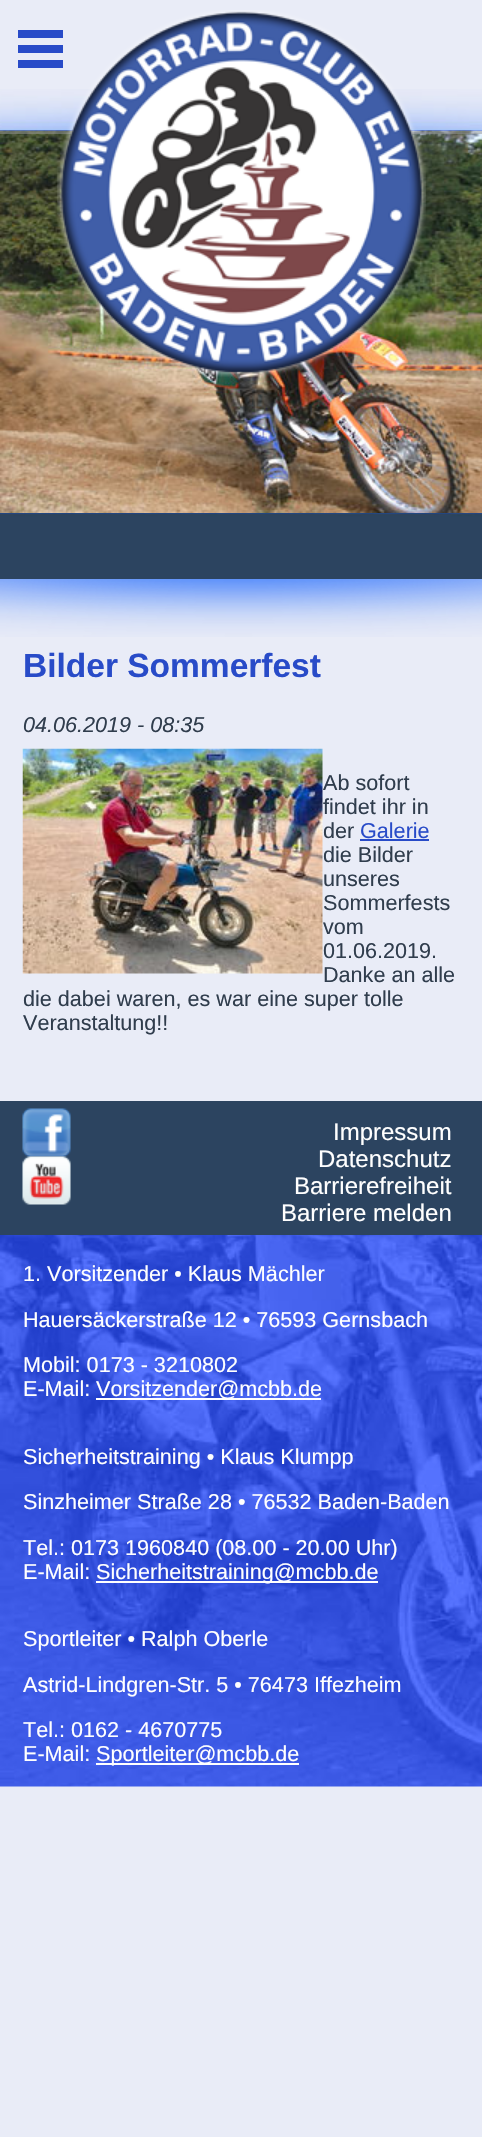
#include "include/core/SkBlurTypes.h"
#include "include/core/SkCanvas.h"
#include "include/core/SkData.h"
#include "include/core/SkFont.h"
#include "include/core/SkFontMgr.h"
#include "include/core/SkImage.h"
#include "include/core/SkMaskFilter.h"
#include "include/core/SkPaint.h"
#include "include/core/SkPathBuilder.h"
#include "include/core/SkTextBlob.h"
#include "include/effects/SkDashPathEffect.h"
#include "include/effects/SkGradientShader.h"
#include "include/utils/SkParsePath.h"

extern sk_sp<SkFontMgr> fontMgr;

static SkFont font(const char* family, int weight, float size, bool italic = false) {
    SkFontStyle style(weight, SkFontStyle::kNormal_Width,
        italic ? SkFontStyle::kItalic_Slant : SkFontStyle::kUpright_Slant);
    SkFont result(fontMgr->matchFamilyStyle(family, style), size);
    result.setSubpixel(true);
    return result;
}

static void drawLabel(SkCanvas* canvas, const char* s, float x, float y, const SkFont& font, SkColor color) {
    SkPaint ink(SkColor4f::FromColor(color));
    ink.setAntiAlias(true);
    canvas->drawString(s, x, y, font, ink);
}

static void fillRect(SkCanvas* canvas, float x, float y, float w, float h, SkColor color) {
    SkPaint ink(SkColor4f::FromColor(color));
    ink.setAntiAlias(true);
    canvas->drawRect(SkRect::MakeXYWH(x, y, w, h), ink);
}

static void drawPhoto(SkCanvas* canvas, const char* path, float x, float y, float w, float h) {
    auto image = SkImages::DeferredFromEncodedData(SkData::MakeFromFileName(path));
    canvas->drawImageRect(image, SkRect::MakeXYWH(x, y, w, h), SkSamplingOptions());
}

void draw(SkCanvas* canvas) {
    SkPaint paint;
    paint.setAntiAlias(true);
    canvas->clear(0xFFE9ECF7);
    drawPhoto(canvas, "assets/img1.png", 0, 89, 482, 490);
    drawPhoto(canvas, "assets/img3.png", 0, 130, 482, 383);
    fillRect(canvas, 0, 131, 482, 3, 0x4D000000);
    fillRect(canvas, 0, 131, 482, 3, 0x4DFFFFFF);
    drawPhoto(canvas, "assets/img2.png", 57, 10, 369, 367);
    fillRect(canvas, 18, 30, 45, 8, 0xFF284BC8);
    fillRect(canvas, 18, 45, 45, 8, 0xFF284BC8);
    fillRect(canvas, 18, 60, 45, 8, 0xFF284BC8);
    drawPhoto(canvas, "assets/img4.png", 0, 579, 482, 58);
    SkFont font1 = font("Liberation Sans", 700, 33.5f);
    drawLabel(canvas, "Bilder Sommerfest", 23, 677, font1, 0xFF284BC8);
    SkFont font2 = font("Liberation Sans", 400, 21.6f, true);
    drawLabel(canvas, "04.06.2019 - 08:35", 23, 732, font2, 0xFF303D4D);
    drawPhoto(canvas, "assets/img5.png", 22, 748, 301, 226);
    SkFont font3 = font("Liberation Sans", 400, 21.6f);
    drawLabel(canvas, "Ab sofort", 323, 790, font3, 0xFF303D4D);
    drawLabel(canvas, "findet ihr in", 323, 814, font3, 0xFF303D4D);
    drawLabel(canvas, "der", 323, 838, font3, 0xFF303D4D);
    drawLabel(canvas, "Galerie", 360, 838, font3, 0xFF284BC8);
    fillRect(canvas, 360, 839, 69, 2, 0xFF284BC8);
    drawLabel(canvas, "die Bilder", 323, 862, font3, 0xFF303D4D);
    drawLabel(canvas, "unseres", 323, 886, font3, 0xFF303D4D);
    drawLabel(canvas, "Sommerfests", 323, 910, font3, 0xFF303D4D);
    drawLabel(canvas, "vom", 323, 934, font3, 0xFF303D4D);
    drawLabel(canvas, "01.06.2019.", 323, 958, font3, 0xFF303D4D);
    drawLabel(canvas, "Danke an alle", 323, 982, font3, 0xFF303D4D);
    drawLabel(canvas, "die dabei waren, es war eine super tolle", 23, 1006, font3, 0xFF303D4D);
    drawLabel(canvas, "Veranstaltung!!", 23, 1030, font3, 0xFF303D4D);
    drawPhoto(canvas, "assets/img6.png", 0, 1235, 482, 552);
    fillRect(canvas, 0, 1101, 482, 134, 0xFF2C4460);
    drawPhoto(canvas, "assets/img7.png", 22, 1108, 49, 49);
    drawPhoto(canvas, "assets/img8.png", 22, 1156, 49, 49);
    SkFont font4 = font("Liberation Sans", 400, 24);
    drawLabel(canvas, "Impressum", 333, 1140, font4, 0xFFFFFFFF);
    drawLabel(canvas, "Datenschutz", 318, 1167, font4, 0xFFFFFFFF);
    drawLabel(canvas, "Barrierefreiheit", 294, 1194, font4, 0xFFFFFFFF);
    drawLabel(canvas, "Barriere melden", 281, 1221, font4, 0xFFFFFFFF);
    drawLabel(canvas, "1. Vorsitzender • Klaus Mächler", 23, 1281, font3, 0xFFFFFFFF);
    drawLabel(canvas, "Hauersäckerstraße 12 • 76593 Gernsbach", 23, 1327, font3, 0xFFFFFFFF);
    drawLabel(canvas, "Mobil: 0173 - 3210802", 23, 1372, font3, 0xFFFFFFFF);
    drawLabel(canvas, "E-Mail:", 23, 1396, font3, 0xFFFFFFFF);
    fillRect(canvas, 96, 1398, 225, 2, 0xFFFFFFFF);
    drawLabel(canvas, "Vorsitzender@mcbb.de", 96, 1396, font3, 0xFFFFFFFF);
    drawLabel(canvas, "Sicherheitstraining • Klaus Klumpp", 23, 1464, font3, 0xFFFFFFFF);
    drawLabel(canvas, "Sinzheimer Straße 28 • 76532 Baden-Baden", 23, 1509, font3, 0xFFFFFFFF);
    drawLabel(canvas, "Tel.: 0173 1960840 (08.00 - 20.00 Uhr)", 23, 1555, font3, 0xFFFFFFFF);
    drawLabel(canvas, "E-Mail:", 23, 1579, font3, 0xFFFFFFFF);
    fillRect(canvas, 96, 1581, 282, 2, 0xFFFFFFFF);
    drawLabel(canvas, "Sicherheitstraining@mcbb.de", 96, 1579, font3, 0xFFFFFFFF);
    drawLabel(canvas, "Sportleiter • Ralph Oberle", 23, 1646, font3, 0xFFFFFFFF);
    drawLabel(canvas, "Astrid-Lindgren-Str. 5 • 76473 Iffezheim", 23, 1692, font3, 0xFFFFFFFF);
    drawLabel(canvas, "Tel.: 0162 - 4670775", 23, 1737, font3, 0xFFFFFFFF);
    drawLabel(canvas, "E-Mail:", 23, 1761, font3, 0xFFFFFFFF);
    fillRect(canvas, 96, 1763, 203, 2, 0xFFFFFFFF);
    drawLabel(canvas, "Sportleiter@mcbb.de", 96, 1761, font3, 0xFFFFFFFF);
}
